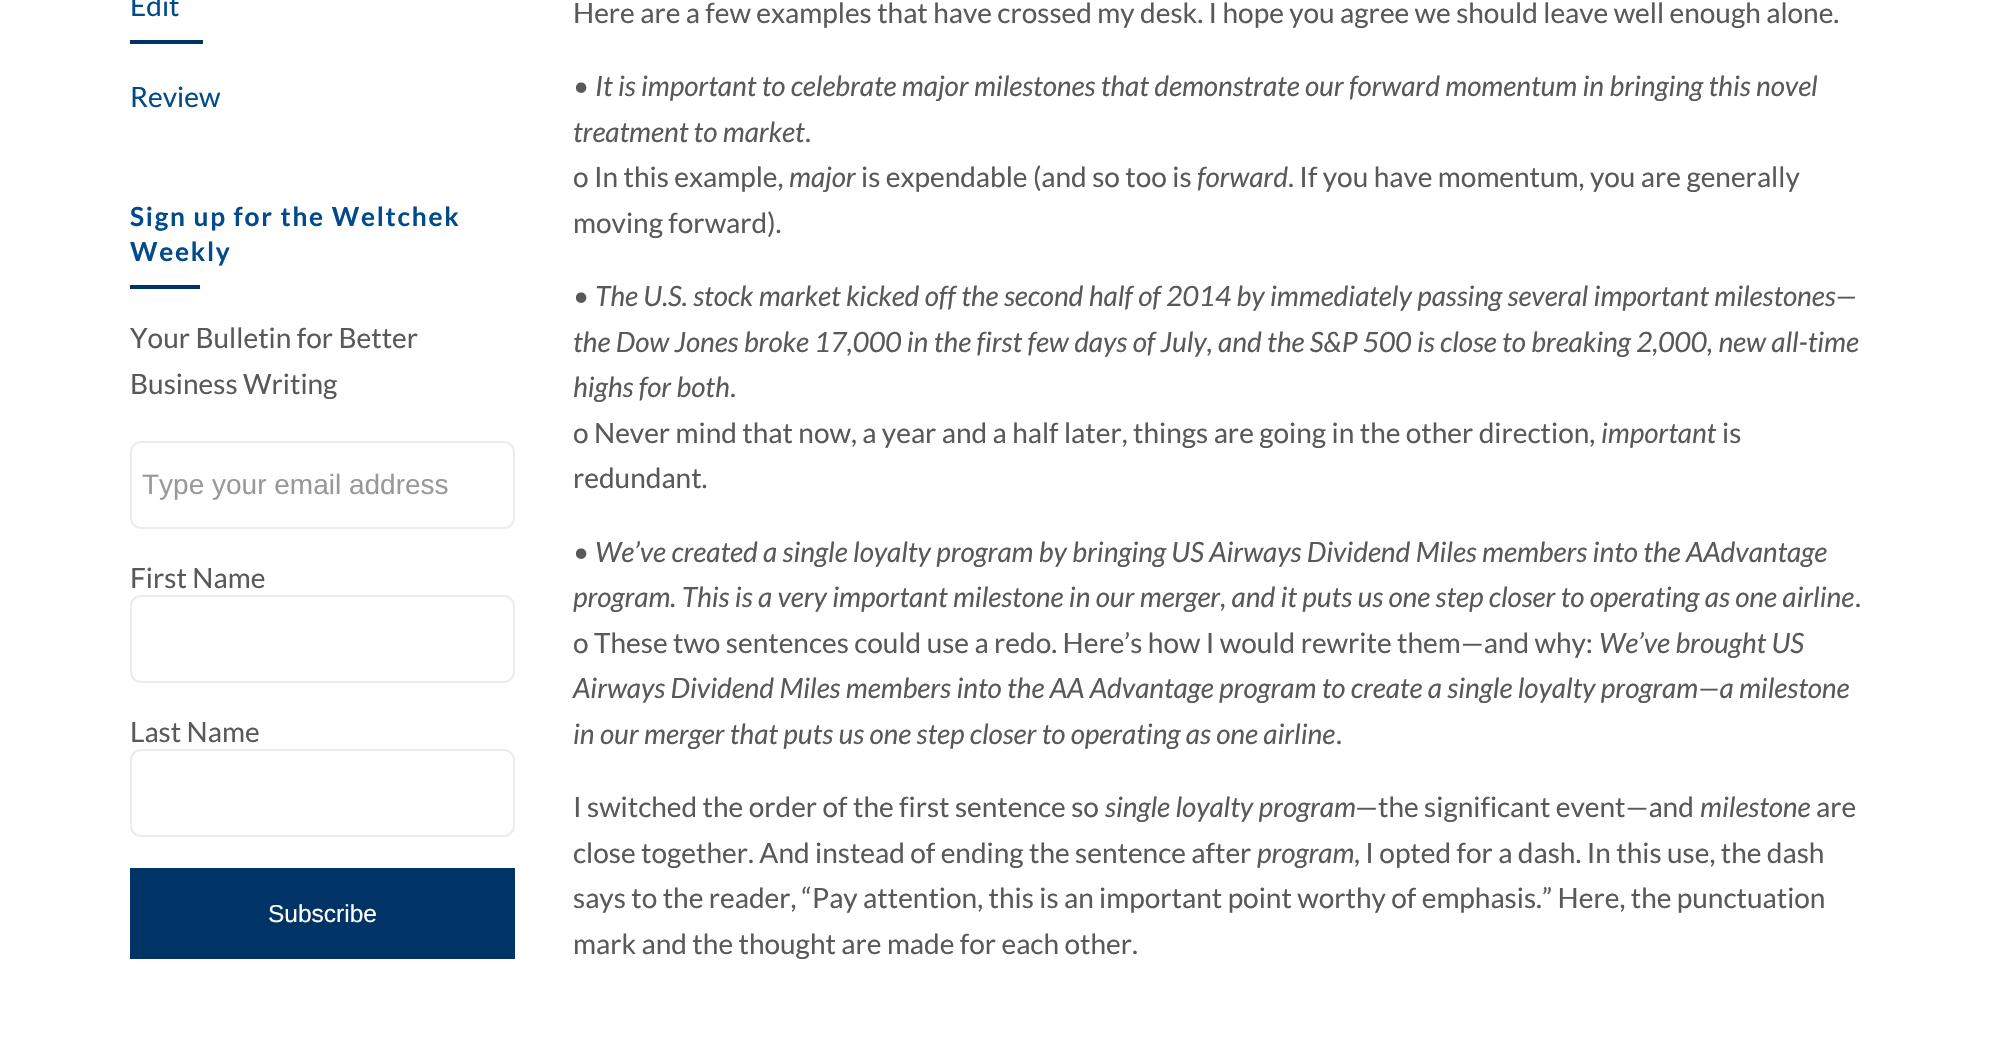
#include "include/core/SkBlurTypes.h"
#include "include/core/SkCanvas.h"
#include "include/core/SkData.h"
#include "include/core/SkFont.h"
#include "include/core/SkFontMgr.h"
#include "include/core/SkImage.h"
#include "include/core/SkMaskFilter.h"
#include "include/core/SkPaint.h"
#include "include/core/SkPathBuilder.h"
#include "include/core/SkTextBlob.h"
#include "include/effects/SkDashPathEffect.h"
#include "include/effects/SkGradientShader.h"
#include "include/utils/SkParsePath.h"

extern sk_sp<SkFontMgr> fontMgr;

static SkFont font(const char* family, int weight, float size, bool italic = false) {
    SkFontStyle style(weight, SkFontStyle::kNormal_Width,
        italic ? SkFontStyle::kItalic_Slant : SkFontStyle::kUpright_Slant);
    SkFont result(fontMgr->matchFamilyStyle(family, style), size);
    result.setSubpixel(true);
    return result;
}

static void drawLabel(SkCanvas* canvas, const char* s, float x, float y, const SkFont& font, SkColor color) {
    SkPaint ink(SkColor4f::FromColor(color));
    ink.setAntiAlias(true);
    canvas->drawString(s, x, y, font, ink);
}

static void drawTracked(SkCanvas* canvas, const char* s, float x, float y, const SkFont& font, const SkPaint& ink, float letter, float word) {
    std::vector<SkGlyphID> glyphs(font.countText(s, strlen(s), SkTextEncoding::kUTF8));
    std::vector<float> xs(glyphs.size());
    font.textToGlyphs(s, strlen(s), SkTextEncoding::kUTF8, glyphs);
    font.getXPos(glyphs, xs, x);
    float extra = 0;
    for (size_t i = 0; i < glyphs.size(); i++) {
        xs[i] += extra;
        extra += letter + word * (glyphs[i] == font.unicharToGlyph(' '));
    }
    canvas->drawTextBlob(SkTextBlob::MakeFromPosHGlyphs(glyphs, xs, y, font), 0, 0, ink);
}

static void fillRect(SkCanvas* canvas, float x, float y, float w, float h, SkColor color) {
    SkPaint ink(SkColor4f::FromColor(color));
    ink.setAntiAlias(true);
    canvas->drawRect(SkRect::MakeXYWH(x, y, w, h), ink);
}

void draw(SkCanvas* canvas) {
    SkPaint paint;
    paint.setAntiAlias(true);
    canvas->clear(0xFFFFFFFF);
    SkFont font1 = font("Lato", 400, 28);
    drawLabel(canvas, "Edit", 130, 16, font1, 0xFF014B8C);
    fillRect(canvas, 130, 40, 73, 4, 0xFF003366);
    drawLabel(canvas, "Review", 130, 107, font1, 0xFF014B8C);
    SkFont font2 = font("Lato", 700, 26.25f);
    paint.setColor(0xFF014B8C);
    drawTracked(canvas, "Sign up for the Weltchek", 130, 226, font2, paint, 1.75f, 0);
    drawTracked(canvas, "Weekly", 130, 261, font2, paint, 1.75f, 0);
    fillRect(canvas, 130, 285, 70, 4, 0xFF003366);
    drawLabel(canvas, "Your Bulletin for Better", 130, 348, font1, 0xFF595959);
    drawLabel(canvas, "Business Writing", 130, 394, font1, 0xFF595959);
    paint.setStroke(true);
    paint.setStrokeWidth(2);
    paint.setColor(0xFFECECEC);
    canvas->drawRoundRect(SkRect::MakeXYWH(131, 442, 383, 86), 10, 10, paint);
    SkFont font3 = font("Liberation Sans", 400, 28);
    drawLabel(canvas, "Type your email address", 142, 494, font3, 0xFF999999);
    drawLabel(canvas, "First Name", 130, 588, font1, 0xFF595959);
    canvas->drawRoundRect(SkRect::MakeXYWH(131, 596, 383, 86), 10, 10, paint);
    drawLabel(canvas, "Last Name", 130, 742, font1, 0xFF595959);
    canvas->drawRoundRect(SkRect::MakeXYWH(131, 750, 383, 86), 10, 10, paint);
    fillRect(canvas, 130, 868, 385, 91, 0xFF003366);
    SkFont font4 = font("Liberation Sans", 400, 24.5f);
    drawLabel(canvas, "Subscribe", 268, 922, font4, 0xFFFFFFFF);
    drawLabel(canvas, "Here are a few examples that have crossed my desk. I hope you agree we should leave well enough alone.", 573, 23, font1, 0xFF595959);
    drawLabel(canvas, "•", 573, 96, font1, 0xFF595959);
    SkFont font5 = font("Lato", 400, 28, true);
    drawLabel(canvas, "It is important to celebrate major milestones that demonstrate our forward momentum in bringing this novel", 595, 96, font5, 0xFF595959);
    drawLabel(canvas, "treatment to market", 573, 142, font5, 0xFF595959);
    drawLabel(canvas, ".", 805, 142, font1, 0xFF595959);
    drawLabel(canvas, "o In this example,", 573, 187, font1, 0xFF595959);
    drawLabel(canvas, "major", 789, 187, font5, 0xFF595959);
    drawLabel(canvas, "is expendable (and so too is", 861, 187, font1, 0xFF595959);
    drawLabel(canvas, "forward", 1197, 187, font5, 0xFF595959);
    drawLabel(canvas, ". If you have momentum, you are generally", 1288, 187, font1, 0xFF595959);
    drawLabel(canvas, "moving forward).", 573, 233, font1, 0xFF595959);
    drawLabel(canvas, "•", 573, 306, font1, 0xFF595959);
    drawLabel(canvas, "The U.S. stock market kicked off the second half of 2014 by immediately passing several important milestones—", 595, 306, font5, 0xFF595959);
    drawLabel(canvas, "the Dow Jones broke 17,000 in the first few days of July, and the S&P 500 is close to breaking 2,000, new all-time", 573, 352, font5, 0xFF595959);
    drawLabel(canvas, "highs for both", 573, 397, font5, 0xFF595959);
    drawLabel(canvas, ".", 730, 397, font1, 0xFF595959);
    drawLabel(canvas, "o Never mind that now, a year and a half later, things are going in the other direction,", 573, 443, font1, 0xFF595959);
    drawLabel(canvas, "important", 1601, 443, font5, 0xFF595959);
    drawLabel(canvas, "is", 1722, 443, font1, 0xFF595959);
    drawLabel(canvas, "redundant.", 573, 488, font1, 0xFF595959);
    drawLabel(canvas, "•", 573, 562, font1, 0xFF595959);
    drawLabel(canvas, "We’ve created a single loyalty program by bringing US Airways Dividend Miles members into the AAdvantage", 595, 562, font5, 0xFF595959);
    drawLabel(canvas, "program. This is a very important milestone in our merger, and it puts us one step closer to operating as one airline", 573, 607, font5, 0xFF595959);
    drawLabel(canvas, ".", 1855, 607, font1, 0xFF595959);
    drawLabel(canvas, "o These two sentences could use a redo. Here’s how I would rewrite them—and why:", 573, 653, font1, 0xFF595959);
    drawLabel(canvas, "We’ve brought US", 1599, 653, font5, 0xFF595959);
    drawLabel(canvas, "Airways Dividend Miles members into the AA Advantage program to create a single loyalty program—a milestone", 573, 698, font5, 0xFF595959);
    drawLabel(canvas, "in our merger that puts us one step closer to operating as one airline", 573, 744, font5, 0xFF595959);
    drawLabel(canvas, ".", 1336, 744, font1, 0xFF595959);
    drawLabel(canvas, "I switched the order of the first sentence so", 573, 817, font1, 0xFF595959);
    drawLabel(canvas, "single loyalty program", 1105, 817, font5, 0xFF595959);
    drawLabel(canvas, "—the significant event—and", 1355, 817, font1, 0xFF595959);
    drawLabel(canvas, "milestone", 1700, 817, font5, 0xFF595959);
    drawLabel(canvas, "are", 1816, 817, font1, 0xFF595959);
    drawLabel(canvas, "close together. And instead of ending the sentence after", 573, 863, font1, 0xFF595959);
    drawLabel(canvas, "program", 1257, 863, font5, 0xFF595959);
    drawLabel(canvas, ", I opted for a dash. In this use, the dash", 1354, 863, font1, 0xFF595959);
    drawLabel(canvas, "says to the reader, “Pay attention, this is an important point worthy of emphasis.” Here, the punctuation", 573, 908, font1, 0xFF595959);
    drawLabel(canvas, "mark and the thought are made for each other.", 573, 954, font1, 0xFF595959);
}
